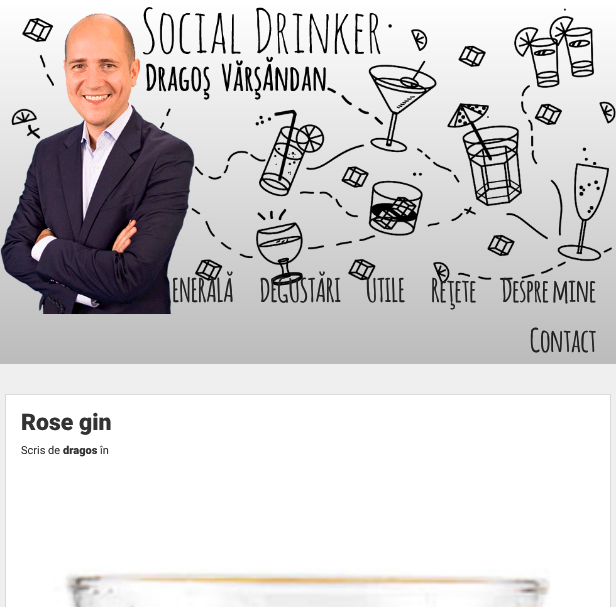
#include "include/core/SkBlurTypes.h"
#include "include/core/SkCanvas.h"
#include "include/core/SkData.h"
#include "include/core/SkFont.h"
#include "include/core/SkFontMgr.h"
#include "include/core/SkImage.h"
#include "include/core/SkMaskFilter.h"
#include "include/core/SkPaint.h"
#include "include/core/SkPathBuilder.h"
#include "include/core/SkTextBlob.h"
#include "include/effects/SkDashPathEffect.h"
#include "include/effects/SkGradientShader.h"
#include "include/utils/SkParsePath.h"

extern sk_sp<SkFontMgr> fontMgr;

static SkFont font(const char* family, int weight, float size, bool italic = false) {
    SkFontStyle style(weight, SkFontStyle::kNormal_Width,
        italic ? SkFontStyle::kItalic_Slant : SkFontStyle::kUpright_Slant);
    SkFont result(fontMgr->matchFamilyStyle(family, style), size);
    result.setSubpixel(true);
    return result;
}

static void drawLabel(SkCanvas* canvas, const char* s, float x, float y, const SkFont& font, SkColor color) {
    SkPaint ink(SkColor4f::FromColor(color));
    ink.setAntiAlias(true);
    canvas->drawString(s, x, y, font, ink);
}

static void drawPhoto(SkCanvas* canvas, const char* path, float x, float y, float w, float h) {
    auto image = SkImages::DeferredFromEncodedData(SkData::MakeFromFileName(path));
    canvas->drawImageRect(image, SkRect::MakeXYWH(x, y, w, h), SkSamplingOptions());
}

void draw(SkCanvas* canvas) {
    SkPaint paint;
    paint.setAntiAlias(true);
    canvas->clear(0xFFEFEFEF);
    {
        const SkColor colors[] = {0xFFFFFFFF, 0xFFBBBBBB};
        const float stops[] = {0, 1};
        const SkPoint ends[] = {{308, 0}, {308, 364}};
        paint.setShader(SkGradientShader::MakeLinear(ends, colors, stops, 2, SkTileMode::kClamp));
        paint.setAlpha(255);
    }
    canvas->drawRect(SkRect::MakeXYWH(0, 0, 616, 364), paint);
    drawPhoto(canvas, "assets/img1.png", 0, 7, 616, 307);
    SkFont font1 = font("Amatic", 700, 32);
    drawLabel(canvas, "ENERALĂ", 172, 302, font1, 0xFF222222);
    drawLabel(canvas, "DEGUSTĂRI", 260, 302, font1, 0xFF222222);
    drawLabel(canvas, "UTILE", 366, 302, font1, 0xFF222222);
    drawLabel(canvas, "Reţete", 431, 302, font1, 0xFF222222);
    drawLabel(canvas, "Despre mine", 502, 302, font1, 0xFF222222);
    drawLabel(canvas, "Contact", 530, 352, font1, 0xFF222222);
    paint.setShader(nullptr);
    paint.setColor(0xFFFFFFFF);
    canvas->drawRect(SkRect::MakeXYWH(5.5f, 394.5f, 605, 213), paint);
    paint.setStroke(true);
    paint.setStrokeWidth(1);
    paint.setColor(0xFFD9D9D9);
    canvas->drawRect(SkRect::MakeXYWH(5.5f, 394.5f, 605, 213), paint);
    SkFont font2 = font("Roboto", 900, 23);
    drawLabel(canvas, "Rose gin", 21, 430, font2, 0xFF333333);
    SkFont font3 = font("Roboto", 400, 11);
    drawLabel(canvas, "Scris de", 21, 454, font3, 0xFF333333);
    SkFont font4 = font("Roboto", 900, 11);
    drawLabel(canvas, "dragos", 63, 454, font4, 0xFF333333);
    drawLabel(canvas, "în", 100, 454, font3, 0xFF333333);
    drawPhoto(canvas, "assets/img2.png", 54, 568, 497, 39);
}
